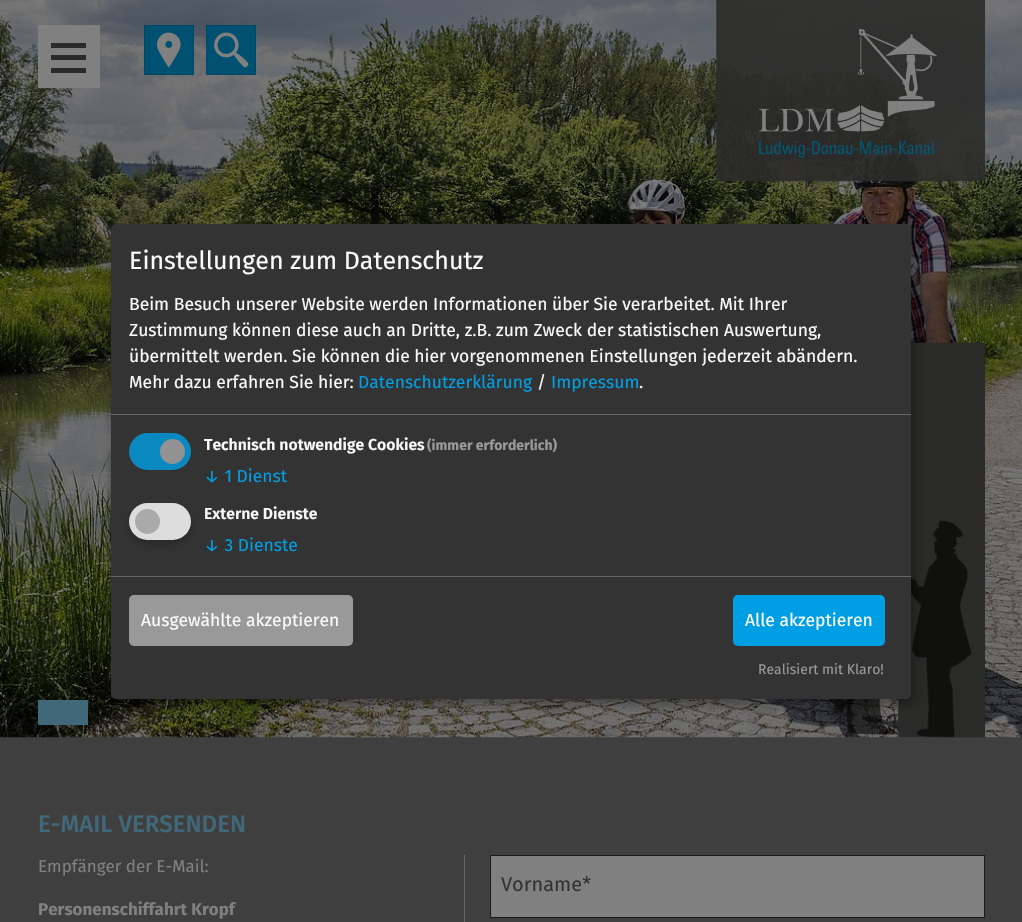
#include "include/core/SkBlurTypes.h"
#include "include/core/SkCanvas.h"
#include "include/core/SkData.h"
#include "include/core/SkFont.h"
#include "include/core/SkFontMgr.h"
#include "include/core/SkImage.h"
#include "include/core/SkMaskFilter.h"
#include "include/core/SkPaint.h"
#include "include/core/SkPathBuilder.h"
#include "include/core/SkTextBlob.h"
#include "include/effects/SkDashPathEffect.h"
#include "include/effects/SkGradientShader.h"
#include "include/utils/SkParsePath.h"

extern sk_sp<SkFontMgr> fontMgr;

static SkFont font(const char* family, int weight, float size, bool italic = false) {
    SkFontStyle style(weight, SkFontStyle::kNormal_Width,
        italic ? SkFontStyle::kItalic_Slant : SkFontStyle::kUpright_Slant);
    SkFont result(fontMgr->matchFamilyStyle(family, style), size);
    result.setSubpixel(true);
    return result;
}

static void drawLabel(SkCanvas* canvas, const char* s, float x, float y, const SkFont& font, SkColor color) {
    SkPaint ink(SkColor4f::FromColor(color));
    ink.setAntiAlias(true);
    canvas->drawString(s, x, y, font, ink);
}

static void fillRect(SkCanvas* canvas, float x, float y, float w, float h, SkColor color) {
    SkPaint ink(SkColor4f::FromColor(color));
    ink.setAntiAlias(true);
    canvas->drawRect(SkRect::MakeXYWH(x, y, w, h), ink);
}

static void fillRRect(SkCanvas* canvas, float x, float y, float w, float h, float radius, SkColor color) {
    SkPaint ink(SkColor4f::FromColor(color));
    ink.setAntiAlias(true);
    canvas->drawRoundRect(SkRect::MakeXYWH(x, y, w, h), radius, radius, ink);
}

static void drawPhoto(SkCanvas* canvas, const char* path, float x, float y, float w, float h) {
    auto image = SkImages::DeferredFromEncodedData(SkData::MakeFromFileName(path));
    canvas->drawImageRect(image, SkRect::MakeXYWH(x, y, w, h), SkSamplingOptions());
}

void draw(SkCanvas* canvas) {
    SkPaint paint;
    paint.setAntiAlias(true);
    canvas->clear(0xFF403F3F);
    drawPhoto(canvas, "assets/img1.png", 0, 0, 1022, 738);
    drawPhoto(canvas, "assets/img2.png", 846, 342, 139, 396);
    fillRect(canvas, 38, 25, 62, 63, 0xFF808080);
    fillRect(canvas, 51, 43, 35, 5, 0xFF2A2A29);
    fillRect(canvas, 51, 55, 35, 5, 0xFF2A2A29);
    fillRect(canvas, 51, 68, 35, 5, 0xFF2A2A29);
    paint.setColor(0xFF005072);
    canvas->drawRect(SkRect::MakeXYWH(144.5f, 25.5f, 49, 49), paint);
    paint.setStroke(true);
    paint.setStrokeWidth(1);
    paint.setColor(0xFF004765);
    canvas->drawRect(SkRect::MakeXYWH(144.5f, 25.5f, 49, 49), paint);
    drawPhoto(canvas, "assets/img3.png", 156, 32, 25, 36);
    paint.setStroke(false);
    paint.setColor(0xFF005072);
    canvas->drawRect(SkRect::MakeXYWH(206.5f, 25.5f, 49, 49), paint);
    paint.setStroke(true);
    paint.setColor(0xFF004765);
    canvas->drawRect(SkRect::MakeXYWH(206.5f, 25.5f, 49, 49), paint);
    drawPhoto(canvas, "assets/img4.png", 214, 32, 35, 36);
    drawPhoto(canvas, "assets/img5.png", 716, 0, 269, 182);
    paint.setStroke(false);
    paint.setColor(0x30000000);
    paint.setMaskFilter(SkMaskFilter::MakeBlur(kNormal_SkBlurStyle, 6));
    canvas->drawRoundRect(SkRect::MakeXYWH(118, 230, 800, 475), 5, 5, paint);
    paint.setMaskFilter(nullptr);
    paint.setColor(0x33000000);
    paint.setMaskFilter(SkMaskFilter::MakeBlur(kNormal_SkBlurStyle, 4));
    canvas->drawRoundRect(SkRect::MakeXYWH(111, 229, 800, 475), 5, 5, paint);
    paint.setMaskFilter(nullptr);
    fillRRect(canvas, 111, 224, 800, 475, 5, 0xFF333333);
    fillRect(canvas, 111, 414, 800, 1, 0xFF666666);
    SkFont font1 = font("Fira Sans", 400, 25);
    drawLabel(canvas, "Einstellungen zum Datenschutz", 129, 269, font1, 0xFFFAFAFA);
    SkFont font2 = font("Fira Sans", 400, 17.5f);
    drawLabel(canvas, "Beim Besuch unserer Website werden Informationen über Sie verarbeitet. Mit Ihrer", 129, 310, font2, 0xFFFAFAFA);
    drawLabel(canvas, "Zustimmung können diese auch an Dritte, z.B. zum Zweck der statistischen Auswertung,", 129, 336, font2, 0xFFFAFAFA);
    drawLabel(canvas, "übermittelt werden. Sie können die hier vorgenommenen Einstellungen jederzeit abändern.", 129, 362, font2, 0xFFFAFAFA);
    drawLabel(canvas, "Mehr dazu erfahren Sie hier:", 129, 388, font2, 0xFFFAFAFA);
    drawLabel(canvas, "Datenschutzerklärung", 358, 388, font2, 0xFF009FE3);
    drawLabel(canvas, "/", 537, 388, font2, 0xFFFAFAFA);
    drawLabel(canvas, "Impressum", 551, 388, font2, 0xFF009FE3);
    drawLabel(canvas, ".", 639, 388, font2, 0xFFFAFAFA);
    fillRRect(canvas, 129, 433, 62, 37, 18.5f, 0xFF0A89C0);
    paint.setColor(0xFF929292);
    canvas->drawCircle(172.5f, 451.5f, 12.5f, paint);
    SkFont font3 = font("Fira Sans", 600, 15.75f);
    drawLabel(canvas, "Technisch notwendige Cookies", 204, 450, font3, 0xFFFAFAFA);
    SkFont font4 = font("Fira Sans", 700, 14);
    drawLabel(canvas, "(immer erforderlich)", 427, 450, font4, 0xFF999999);
    drawLabel(canvas, "↓ 1 Dienst", 204, 482, font2, 0xFF009FE3);
    paint.setColor(0x33000000);
    paint.setMaskFilter(SkMaskFilter::MakeBlur(kNormal_SkBlurStyle, 4));
    canvas->drawRoundRect(SkRect::MakeXYWH(129, 508, 62, 37), 18.5f, 18.5f, paint);
    paint.setMaskFilter(nullptr);
    fillRRect(canvas, 129, 503, 62, 37, 18.5f, 0xFFDDDDDD);
    paint.setColor(0xFFAAAAAA);
    canvas->drawCircle(147.5f, 521.5f, 12.5f, paint);
    drawLabel(canvas, "Externe Dienste", 204, 519, font3, 0xFFFAFAFA);
    drawLabel(canvas, "↓ 3 Dienste", 204, 551, font2, 0xFF009FE3);
    fillRect(canvas, 111, 576, 800, 1, 0xFF666666);
    fillRRect(canvas, 129, 595, 224, 51, 5, 0xFF999999);
    drawLabel(canvas, "Ausgewählte akzeptieren", 141, 626, font2, 0xFFFAFAFA);
    fillRRect(canvas, 733, 595, 152, 51, 5, 0xFF009FE3);
    drawLabel(canvas, "Alle akzeptieren", 745, 626, font2, 0xFFFAFAFA);
    SkFont font5 = font("Fira Sans", 400, 14);
    drawLabel(canvas, "Realisiert mit Klaro!", 758, 674, font5, 0xFF999999);
    fillRect(canvas, 38, 700, 50, 25, 0xFF406879);
    SkFont font6 = font("Fira Sans", 500, 24);
    drawLabel(canvas, "E-MAIL VERSENDEN", 38, 832, font6, 0xFF406879);
    SkFont font7 = font("Fira Sans", 400, 17);
    drawLabel(canvas, "Empfänger der E-Mail:", 38, 872, font7, 0xFF808080);
    SkFont font8 = font("Fira Sans", 700, 17);
    drawLabel(canvas, "Personenschiffahrt Kropf", 38, 915, font8, 0xFF808080);
    fillRect(canvas, 464, 855, 1, 67, 0xFF666666);
    paint.setColor(0xFF808080);
    canvas->drawRect(SkRect::MakeXYWH(490.5f, 855.5f, 494, 62), paint);
    paint.setStroke(true);
    paint.setColor(0xFF1A1A1A);
    canvas->drawRect(SkRect::MakeXYWH(490.5f, 855.5f, 494, 62), paint);
    SkFont font9 = font("Fira Sans", 400, 20);
    drawLabel(canvas, "Vorname*", 501, 891, font9, 0xFF333333);
}
